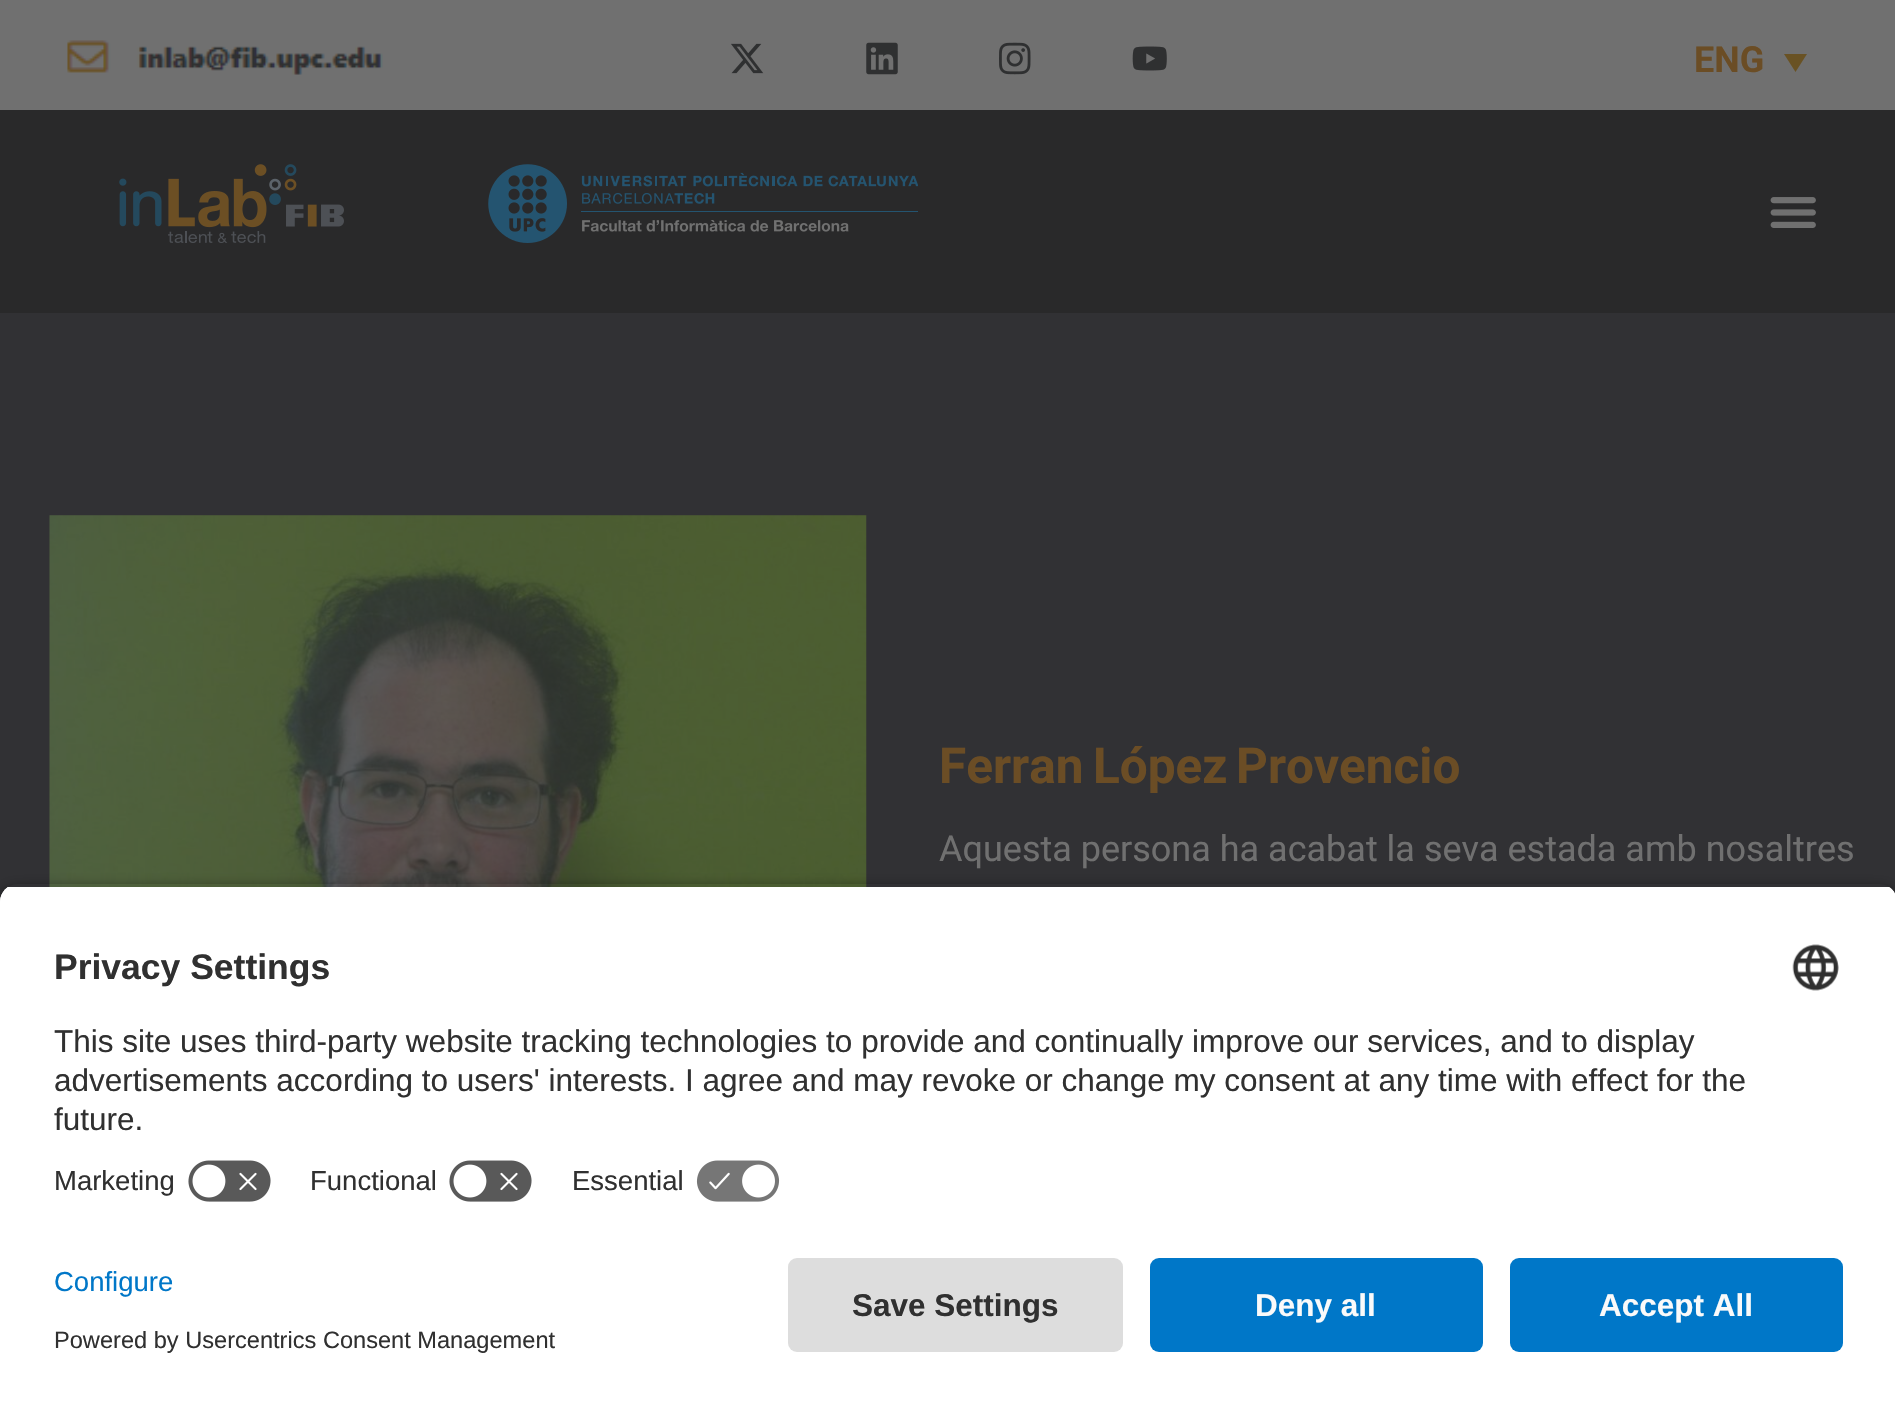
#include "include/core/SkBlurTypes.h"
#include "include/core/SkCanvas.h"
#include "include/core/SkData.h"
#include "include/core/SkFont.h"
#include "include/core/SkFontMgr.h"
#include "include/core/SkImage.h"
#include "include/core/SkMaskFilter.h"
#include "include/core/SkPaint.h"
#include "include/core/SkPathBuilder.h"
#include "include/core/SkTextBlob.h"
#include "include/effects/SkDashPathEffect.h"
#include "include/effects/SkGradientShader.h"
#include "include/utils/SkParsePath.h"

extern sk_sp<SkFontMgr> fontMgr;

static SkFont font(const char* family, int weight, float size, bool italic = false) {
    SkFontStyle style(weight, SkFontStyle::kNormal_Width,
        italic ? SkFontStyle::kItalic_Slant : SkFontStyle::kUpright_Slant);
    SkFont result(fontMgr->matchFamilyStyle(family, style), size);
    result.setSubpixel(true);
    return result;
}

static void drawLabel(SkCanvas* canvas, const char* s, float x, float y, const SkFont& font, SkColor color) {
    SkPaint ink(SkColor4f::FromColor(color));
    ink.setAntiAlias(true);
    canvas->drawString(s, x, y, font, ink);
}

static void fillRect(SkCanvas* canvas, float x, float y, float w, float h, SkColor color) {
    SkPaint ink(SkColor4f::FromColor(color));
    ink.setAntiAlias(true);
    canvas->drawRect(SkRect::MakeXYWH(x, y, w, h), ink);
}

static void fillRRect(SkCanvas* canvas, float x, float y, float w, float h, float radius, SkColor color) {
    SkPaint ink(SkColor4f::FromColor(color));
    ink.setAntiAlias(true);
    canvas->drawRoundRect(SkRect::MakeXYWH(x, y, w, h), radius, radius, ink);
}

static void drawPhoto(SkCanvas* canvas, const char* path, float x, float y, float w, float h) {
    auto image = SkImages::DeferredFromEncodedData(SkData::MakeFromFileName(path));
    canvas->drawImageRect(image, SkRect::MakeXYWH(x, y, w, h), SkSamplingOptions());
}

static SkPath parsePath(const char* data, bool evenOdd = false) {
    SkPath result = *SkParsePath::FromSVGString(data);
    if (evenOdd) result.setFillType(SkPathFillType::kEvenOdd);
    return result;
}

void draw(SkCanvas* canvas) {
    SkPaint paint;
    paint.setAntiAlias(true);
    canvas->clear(0xFF707070);
    drawPhoto(canvas, "assets/img1.png", 67, 40, 316, 35);
    drawPhoto(canvas, "assets/img2.png", 731, 43, 33, 31);
    drawPhoto(canvas, "assets/img3.png", 866, 42, 32, 33);
    drawPhoto(canvas, "assets/img4.png", 999, 42, 32, 33);
    drawPhoto(canvas, "assets/img5.png", 1132, 46, 35, 25);
    SkFont font1 = font("Roboto", 700, 36);
    drawLabel(canvas, "ENG", 1694, 72, font1, 0xFF6B4D25);
    paint.setColor(0xFF695224);
    canvas->drawPath(parsePath("M1784 54H1807L1795.5 72Z"), paint);
    fillRect(canvas, 0, 110, 1895, 203, 0xFF29292A);
    drawPhoto(canvas, "assets/img6.png", 119, 164, 225, 79);
    drawPhoto(canvas, "assets/img7.png", 488, 164, 430, 79);
    drawPhoto(canvas, "assets/img8.png", 1770, 197, 46, 31);
    fillRect(canvas, 0, 313, 1895, 589, 0xFF313134);
    drawPhoto(canvas, "assets/img9.png", 49, 515, 818, 372);
    SkFont font2 = font("Roboto", 700, 49.5f);
    drawLabel(canvas, "Ferran", 939, 783, font2, 0xFF6B4D25);
    drawLabel(canvas, "López", 1093, 783, font2, 0xFF6B4D25);
    drawLabel(canvas, "Provencio", 1236, 783, font2, 0xFF6B4D25);
    SkFont font3 = font("Roboto", 400, 36);
    drawLabel(canvas, "Aquesta persona ha acabat la seva estada amb nosaltres", 939, 861, font3, 0xFF707070);
    canvas->save();
    canvas->clipPath(parsePath("M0 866H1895V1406H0ZM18 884H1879C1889 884 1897 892 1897 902V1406H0V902C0 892 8 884 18 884Z", true), true);
    paint.setColor(0xCC000000);
    paint.setMaskFilter(SkMaskFilter::MakeBlur(kNormal_SkBlurStyle, 8));
    canvas->drawRoundRect(SkRect::MakeXYWH(0, 891, 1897, 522), 18, 18, paint);
    paint.setMaskFilter(nullptr);
    canvas->restore();
    canvas->save();
    canvas->clipPath(parsePath("M18 884H1879C1889 884 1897 892 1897 902V1240H0V902C0 892 8 884 18 884Z"), true);
    fillRect(canvas, 0, 887, 1895, 353, 0xFFFFFFFF);
    fillRect(canvas, 0, 887, 1895, 263, 0xFFFFFFFF);
    canvas->restore();
    SkFont font4 = font("Liberation Sans", 700, 35.5f);
    drawLabel(canvas, "Privacy Settings", 54, 979, font4, 0xFF303030);
    drawPhoto(canvas, "assets/img10.png", 1792, 944, 47, 47);
    SkFont font5 = font("Liberation Sans", 400, 31.5f);
    drawLabel(canvas, "This site uses third-party website tracking technologies to provide and continually improve our services, and to display", 54, 1052, font5, 0xFF303030);
    drawLabel(canvas, "advertisements according to users' interests. I agree and may revoke or change my consent at any time with effect for the", 54, 1091, font5, 0xFF303030);
    drawLabel(canvas, "future.", 54, 1130, font5, 0xFF303030);
    SkFont font6 = font("Liberation Sans", 400, 27.5f);
    drawLabel(canvas, "Marketing", 54, 1190, font6, 0xFF303030);
    drawPhoto(canvas, "assets/img11.png", 188, 1160, 83, 42);
    drawLabel(canvas, "Functional", 310, 1190, font6, 0xFF303030);
    drawPhoto(canvas, "assets/img11.png", 449, 1160, 83, 42);
    drawLabel(canvas, "Essential", 572, 1190, font6, 0xFF303030);
    drawPhoto(canvas, "assets/img12.png", 696, 1160, 84, 42);
    fillRect(canvas, 0, 1240, 1895, 166, 0xFFFFFFFF);
    drawLabel(canvas, "Configure", 54, 1291, font6, 0xFF0077C8);
    SkFont font7 = font("Liberation Sans", 400, 23.6f);
    drawLabel(canvas, "Powered by Usercentrics Consent Management", 54, 1348, font7, 0xFF303030);
    fillRRect(canvas, 788, 1258, 335, 94, 9, 0xFFDDDDDD);
    SkFont font8 = font("Liberation Sans", 700, 31.5f);
    drawLabel(canvas, "Save Settings", 852, 1316, font8, 0xFF303030);
    fillRRect(canvas, 1150, 1258, 333, 94, 9, 0xFF0077C8);
    drawLabel(canvas, "Deny all", 1255, 1316, font8, 0xFFFAFAFA);
    fillRRect(canvas, 1510, 1258, 333, 94, 9, 0xFF0077C8);
    drawLabel(canvas, "Accept All", 1599, 1316, font8, 0xFFFAFAFA);
}
